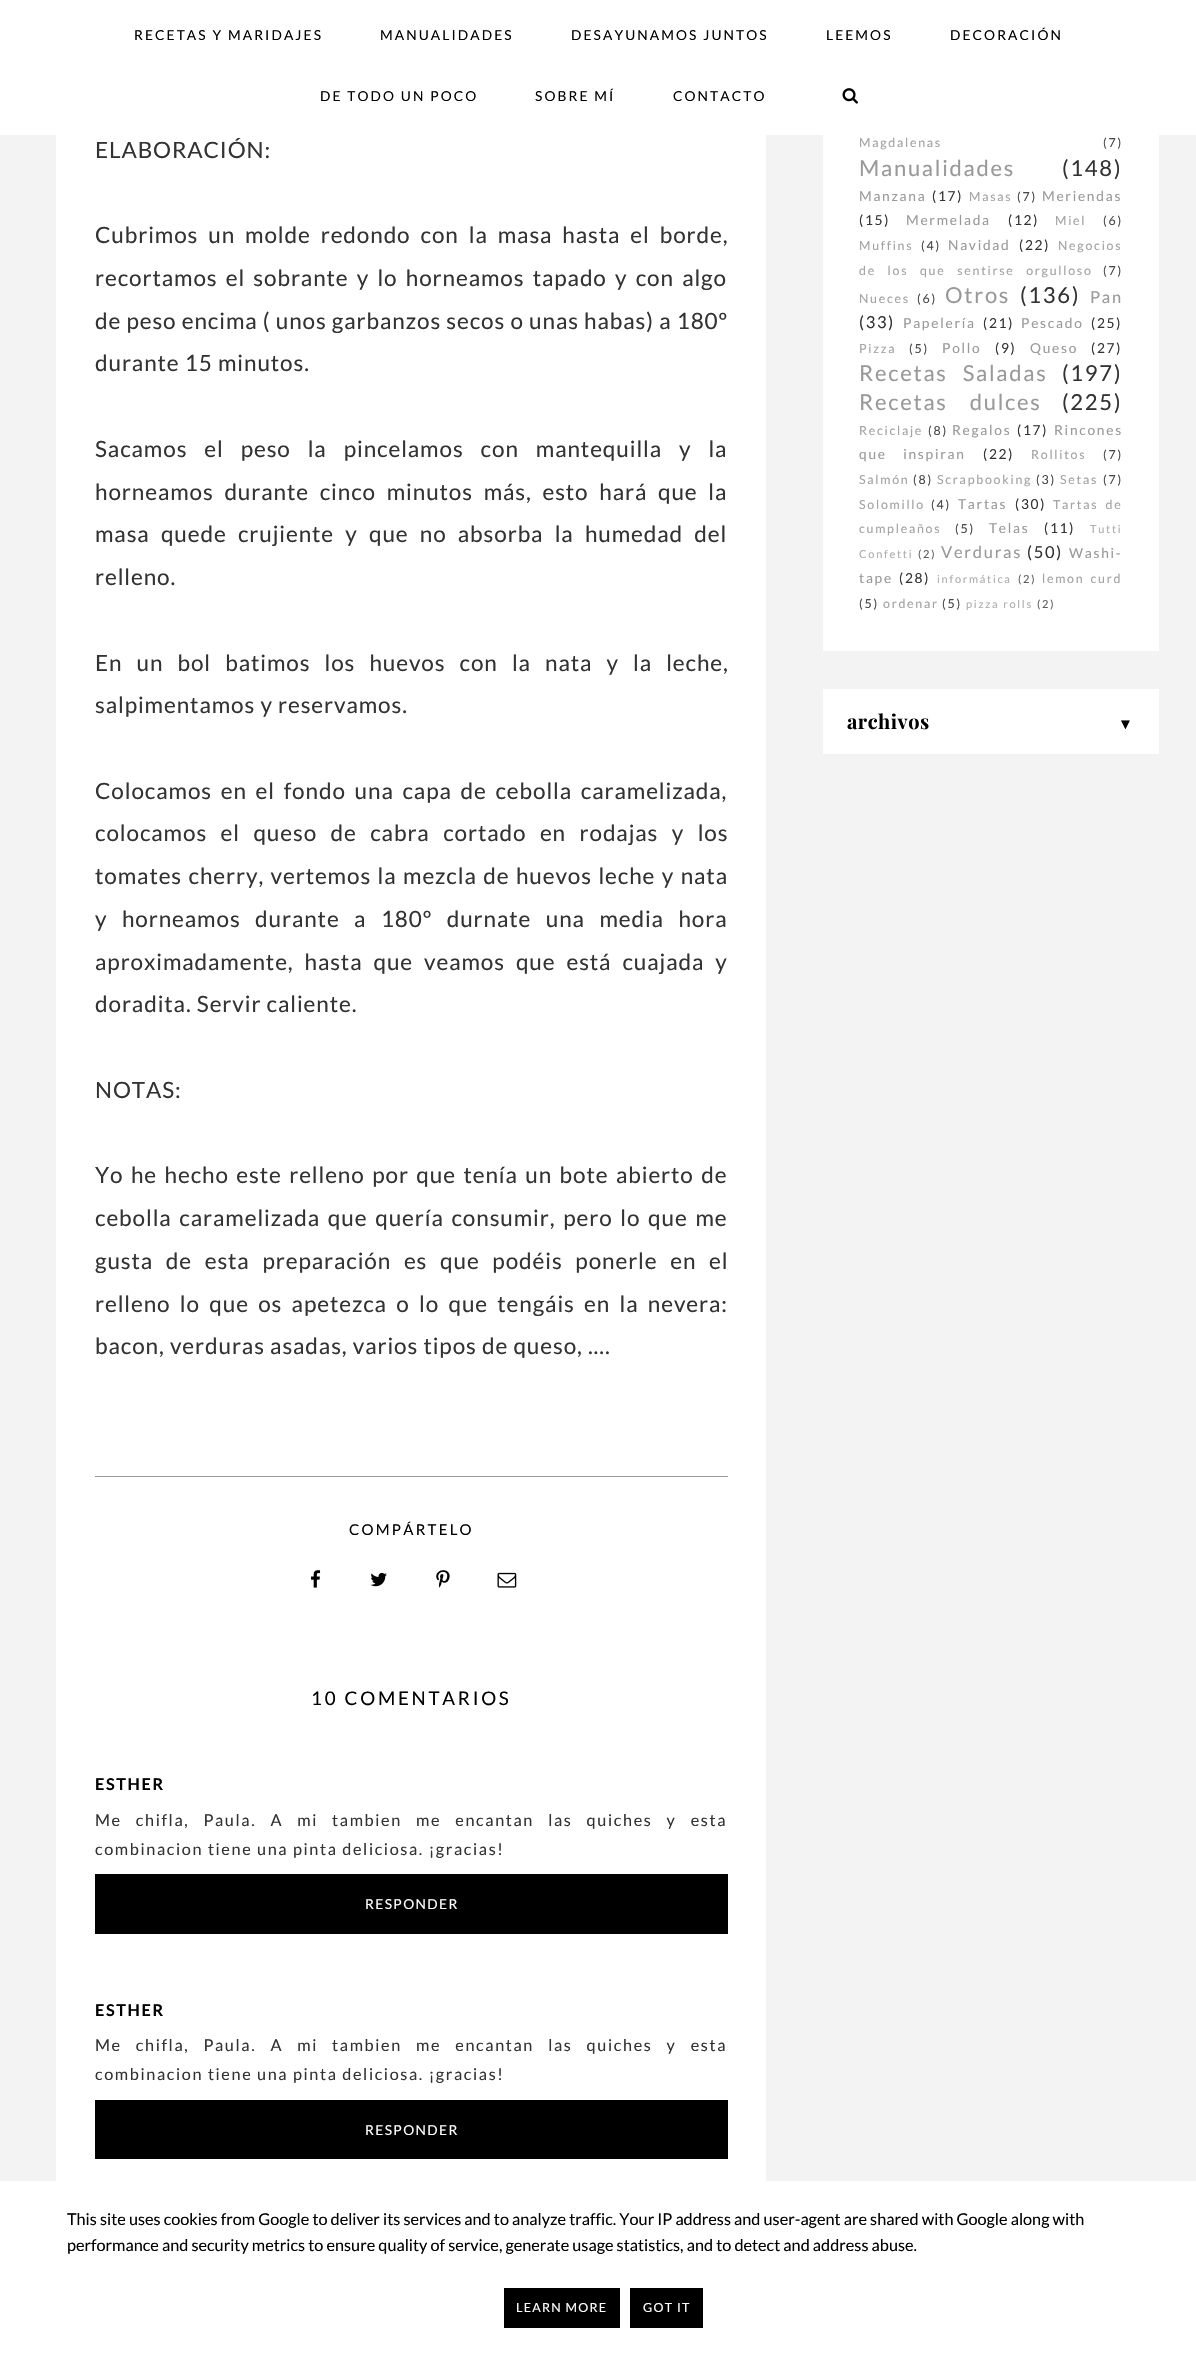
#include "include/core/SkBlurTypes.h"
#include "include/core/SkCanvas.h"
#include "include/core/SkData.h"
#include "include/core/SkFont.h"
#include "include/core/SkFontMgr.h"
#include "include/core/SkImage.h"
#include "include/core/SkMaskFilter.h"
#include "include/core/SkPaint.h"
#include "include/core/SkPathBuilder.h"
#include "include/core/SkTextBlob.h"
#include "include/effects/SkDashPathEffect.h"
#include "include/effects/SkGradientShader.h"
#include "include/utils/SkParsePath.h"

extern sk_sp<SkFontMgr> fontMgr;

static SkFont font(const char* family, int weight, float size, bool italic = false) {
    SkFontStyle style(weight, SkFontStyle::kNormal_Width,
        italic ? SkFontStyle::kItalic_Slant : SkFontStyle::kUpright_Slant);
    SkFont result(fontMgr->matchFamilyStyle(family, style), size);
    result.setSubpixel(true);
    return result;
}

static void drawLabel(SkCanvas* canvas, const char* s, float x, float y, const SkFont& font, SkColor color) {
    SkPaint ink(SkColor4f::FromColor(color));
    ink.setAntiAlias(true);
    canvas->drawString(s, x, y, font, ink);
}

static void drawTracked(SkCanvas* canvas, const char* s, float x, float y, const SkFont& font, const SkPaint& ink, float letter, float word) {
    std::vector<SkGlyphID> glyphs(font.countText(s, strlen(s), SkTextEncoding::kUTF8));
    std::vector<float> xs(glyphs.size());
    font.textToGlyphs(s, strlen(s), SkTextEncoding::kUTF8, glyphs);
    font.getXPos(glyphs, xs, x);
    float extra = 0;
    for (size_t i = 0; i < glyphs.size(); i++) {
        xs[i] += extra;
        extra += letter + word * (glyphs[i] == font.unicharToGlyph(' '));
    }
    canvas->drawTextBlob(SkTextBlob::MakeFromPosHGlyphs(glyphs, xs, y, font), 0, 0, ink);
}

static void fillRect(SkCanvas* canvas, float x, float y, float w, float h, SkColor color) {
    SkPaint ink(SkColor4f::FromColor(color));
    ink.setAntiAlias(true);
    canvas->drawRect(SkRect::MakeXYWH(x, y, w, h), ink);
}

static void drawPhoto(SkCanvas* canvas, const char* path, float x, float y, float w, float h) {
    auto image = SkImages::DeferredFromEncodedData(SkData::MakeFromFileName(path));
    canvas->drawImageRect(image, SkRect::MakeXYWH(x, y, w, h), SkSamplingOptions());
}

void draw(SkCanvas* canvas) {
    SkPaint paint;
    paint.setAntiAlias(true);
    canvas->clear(0xFFF3F3F3);
    fillRect(canvas, 0, 0, 1196, 135, 0xFFFFFFFF);
    SkFont font1 = font("Lato", 400, 13.75f);
    paint.setColor(0xFF000000);
    drawTracked(canvas, "RECETAS Y MARIDAJES", 134, 40, font1, paint, 2.1f, 0);
    drawTracked(canvas, "MANUALIDADES", 380, 40, font1, paint, 2.1f, 0);
    drawTracked(canvas, "DESAYUNAMOS JUNTOS", 571, 40, font1, paint, 2.1f, 0);
    drawTracked(canvas, "LEEMOS", 826, 40, font1, paint, 2.1f, 0);
    drawTracked(canvas, "DECORACIÓN", 950, 40, font1, paint, 2.1f, 0);
    drawTracked(canvas, "DE TODO UN POCO", 320, 101, font1, paint, 2.1f, 0);
    drawTracked(canvas, "SOBRE MÍ", 535, 101, font1, paint, 2.1f, 0);
    drawTracked(canvas, "CONTACTO", 673, 101, font1, paint, 2.1f, 0);
    drawPhoto(canvas, "assets/img1.png", 842, 88, 16, 16);
    fillRect(canvas, 56, 135, 710, 2046, 0xFFFFFFFF);
    SkFont font2 = font("Lato", 400, 22.5f);
    paint.setColor(0xFF333333);
    drawTracked(canvas, "ELABORACIÓN:", 95, 158, font2, paint, 0.9f, 0);
    drawTracked(canvas, "Cubrimos un molde redondo con la masa hasta el borde,", 95, 243, font2, paint, 0.9f, 4.75f);
    drawTracked(canvas, "recortamos el sobrante y lo horneamos tapado y con algo", 95, 286, font2, paint, 0.9f, 3);
    drawTracked(canvas, "de peso encima ( unos garbanzos secos o unas habas) a 180º", 95, 329, font2, paint, 0.9f, 0);
    drawTracked(canvas, "durante 15 minutos.", 95, 371, font2, paint, 0.9f, 0);
    drawTracked(canvas, "Sacamos el peso la pincelamos con mantequilla y la", 95, 457, font2, paint, 0.9f, 11.75f);
    drawTracked(canvas, "horneamos durante cinco minutos más, esto hará que la", 95, 500, font2, paint, 0.9f, 5.5f);
    drawTracked(canvas, "masa quede crujiente y que no absorba la humedad del", 95, 542, font2, paint, 0.9f, 6);
    drawTracked(canvas, "relleno.", 95, 585, font2, paint, 0.9f, 0);
    drawTracked(canvas, "En un bol batimos los huevos con la nata y la leche,", 95, 671, font2, paint, 0.9f, 8.9f);
    drawTracked(canvas, "salpimentamos y reservamos.", 95, 713, font2, paint, 0.9f, 0);
    drawTracked(canvas, "Colocamos en el fondo una capa de cebolla caramelizada,", 95, 799, font2, paint, 0.9f, 3.5f);
    drawTracked(canvas, "colocamos el queso de cabra cortado en rodajas y los", 95, 841, font2, paint, 0.9f, 8.25f);
    drawTracked(canvas, "tomates cherry, vertemos la mezcla de huevos leche y nata", 95, 884, font2, paint, 0.9f, 1.25f);
    drawTracked(canvas, "y horneamos durante a 180º durnate una media hora", 95, 927, font2, paint, 0.9f, 9.25f);
    drawTracked(canvas, "aproximadamente, hasta que veamos que está cuajada y", 95, 970, font2, paint, 0.9f, 5.75f);
    drawTracked(canvas, "doradita. Servir caliente.", 95, 1012, font2, paint, 0.9f, 0);
    drawTracked(canvas, "NOTAS:", 95, 1098, font2, paint, 0.9f, 0);
    drawTracked(canvas, "Yo he hecho este relleno por que tenía un bote abierto de", 95, 1183, font2, paint, 0.9f, 2.25f);
    drawTracked(canvas, "cebolla caramelizada que quería consumir, pero lo que me", 95, 1226, font2, paint, 0.9f, 2.5f);
    drawTracked(canvas, "gusta de esta preparación es que podéis ponerle en el", 95, 1269, font2, paint, 0.9f, 7.5f);
    drawTracked(canvas, "relleno lo que os apetezca o lo que tengáis en la nevera:", 95, 1312, font2, paint, 0.9f, 4.1f);
    drawTracked(canvas, "bacon, verduras asadas, varios tipos de queso, ....", 95, 1354, font2, paint, 0.9f, 0);
    fillRect(canvas, 95, 1476, 633, 1, 0xFF999999);
    SkFont font3 = font("Lato", 400, 15);
    paint.setColor(0xFF000000);
    drawTracked(canvas, "COMPÁRTELO", 349, 1535, font3, paint, 2.25f, 0);
    drawPhoto(canvas, "assets/img2.png", 311, 1570, 10, 18);
    drawPhoto(canvas, "assets/img3.png", 370, 1572, 17, 15);
    drawPhoto(canvas, "assets/img4.png", 436, 1570, 14, 18);
    drawPhoto(canvas, "assets/img5.png", 497, 1572, 20, 16);
    SkFont font4 = font("Lato", 400, 18.75f);
    drawTracked(canvas, "10 COMENTARIOS", 311, 1705, font4, paint, 2.75f, 0);
    SkFont font5 = font("Lato", 700, 16.25f);
    drawTracked(canvas, "ESTHER", 95, 1790, font5, paint, 1.62f, 0);
    SkFont font6 = font("Lato", 400, 16.25f);
    paint.setColor(0xFF333333);
    drawTracked(canvas, "Me chifla, Paula. A mi tambien me encantan las quiches y esta", 95, 1826, font6, paint, 1.62f, 9.4f);
    drawTracked(canvas, "combinacion tiene una pinta deliciosa. ¡gracias!", 95, 1855, font6, paint, 1.62f, 0);
    fillRect(canvas, 95, 1874, 633, 60, 0xFF000000);
    paint.setColor(0xFFFFFFFF);
    drawTracked(canvas, "RESPONDER", 365, 1909, font1, paint, 1.4f, 0);
    paint.setColor(0xFF000000);
    drawTracked(canvas, "ESTHER", 95, 2016, font5, paint, 1.62f, 0);
    paint.setColor(0xFF333333);
    drawTracked(canvas, "Me chifla, Paula. A mi tambien me encantan las quiches y esta", 95, 2051, font6, paint, 1.62f, 9.4f);
    drawTracked(canvas, "combinacion tiene una pinta deliciosa. ¡gracias!", 95, 2080, font6, paint, 1.62f, 0);
    fillRect(canvas, 95, 2100, 633, 59, 0xFF000000);
    paint.setColor(0xFFFFFFFF);
    drawTracked(canvas, "RESPONDER", 365, 2135, font1, paint, 1.4f, 0);
    fillRect(canvas, 823, 135, 336, 516, 0xFFFFFFFF);
    SkFont font7 = font("Lato", 400, 12.4f);
    paint.setColor(0xFFA3A3A3);
    drawTracked(canvas, "Magdalenas", 859, 147, font7, paint, 1.75f, 0);
    paint.setColor(0xFF474747);
    drawTracked(canvas, "(7)", 1103, 147, font7, paint, 1.75f, 0);
    SkFont font8 = font("Lato", 400, 22);
    paint.setColor(0xFF999999);
    drawTracked(canvas, "Manualidades", 859, 176, font8, paint, 1.75f, 0);
    paint.setColor(0xFF333333);
    drawTracked(canvas, "(148)", 1062, 176, font8, paint, 1.75f, 0);
    paint.setColor(0xFF999999);
    drawTracked(canvas, "Manzana", 859, 201, font1, paint, 1.75f, 0);
    paint.setColor(0xFF333333);
    drawTracked(canvas, "(17)", 932, 201, font1, paint, 1.75f, 0);
    paint.setColor(0xFFA3A3A3);
    drawTracked(canvas, "Masas", 969, 201, font7, paint, 1.75f, 0);
    paint.setColor(0xFF474747);
    drawTracked(canvas, "(7)", 1017, 201, font7, paint, 1.75f, 0);
    paint.setColor(0xFF999999);
    drawTracked(canvas, "Meriendas", 1042, 201, font1, paint, 1.75f, 0);
    paint.setColor(0xFF333333);
    drawTracked(canvas, "(15)", 859, 225, font1, paint, 1.75f, 0);
    paint.setColor(0xFF999999);
    drawTracked(canvas, "Mermelada", 906, 225, font1, paint, 1.75f, 0);
    paint.setColor(0xFF333333);
    drawTracked(canvas, "(12)", 1008, 225, font1, paint, 1.75f, 0);
    paint.setColor(0xFFA3A3A3);
    drawTracked(canvas, "Miel", 1055, 225, font7, paint, 1.75f, 0);
    paint.setColor(0xFF474747);
    drawTracked(canvas, "(6)", 1103, 225, font7, paint, 1.75f, 0);
    paint.setColor(0xFFA3A3A3);
    drawTracked(canvas, "Muffins", 859, 250, font7, paint, 1.75f, 0);
    paint.setColor(0xFF474747);
    drawTracked(canvas, "(4)", 921, 250, font7, paint, 1.75f, 0);
    paint.setColor(0xFF999999);
    drawTracked(canvas, "Navidad", 948, 250, font1, paint, 1.75f, 0);
    paint.setColor(0xFF333333);
    drawTracked(canvas, "(22)", 1019, 250, font1, paint, 1.75f, 0);
    paint.setColor(0xFFA3A3A3);
    drawTracked(canvas, "Negocios", 1058, 250, font7, paint, 1.75f, 0);
    drawTracked(canvas, "de los que sentirse orgulloso", 859, 275, font7, paint, 1.75f, 7.5f);
    paint.setColor(0xFF474747);
    drawTracked(canvas, "(7)", 1103, 275, font7, paint, 1.75f, 0);
    paint.setColor(0xFFA3A3A3);
    drawTracked(canvas, "Nueces", 859, 303, font7, paint, 1.75f, 0);
    paint.setColor(0xFF474747);
    drawTracked(canvas, "(6)", 917, 303, font7, paint, 1.75f, 0);
    paint.setColor(0xFF999999);
    drawTracked(canvas, "Otros", 945, 303, font8, paint, 1.75f, 0);
    paint.setColor(0xFF333333);
    drawTracked(canvas, "(136)", 1020, 303, font8, paint, 1.75f, 0);
    SkFont font9 = font("Lato", 400, 16.5f);
    paint.setColor(0xFF999999);
    drawTracked(canvas, "Pan", 1090, 303, font9, paint, 1.75f, 0);
    paint.setColor(0xFF333333);
    drawTracked(canvas, "(33)", 859, 328, font9, paint, 1.75f, 0);
    paint.setColor(0xFF999999);
    drawTracked(canvas, "Papelería", 903, 328, font1, paint, 1.75f, 0);
    paint.setColor(0xFF333333);
    drawTracked(canvas, "(21)", 983, 328, font1, paint, 1.75f, 0);
    paint.setColor(0xFF999999);
    drawTracked(canvas, "Pescado", 1021, 328, font1, paint, 1.75f, 0);
    paint.setColor(0xFF333333);
    drawTracked(canvas, "(25)", 1091, 328, font1, paint, 1.75f, 0);
    paint.setColor(0xFFA3A3A3);
    drawTracked(canvas, "Pizza", 859, 353, font7, paint, 1.75f, 0);
    paint.setColor(0xFF474747);
    drawTracked(canvas, "(5)", 909, 353, font7, paint, 1.75f, 0);
    paint.setColor(0xFF999999);
    drawTracked(canvas, "Pollo", 942, 353, font1, paint, 1.75f, 0);
    paint.setColor(0xFF333333);
    drawTracked(canvas, "(9)", 995, 353, font1, paint, 1.75f, 0);
    paint.setColor(0xFF999999);
    drawTracked(canvas, "Queso", 1030, 353, font1, paint, 1.75f, 0);
    paint.setColor(0xFF333333);
    drawTracked(canvas, "(27)", 1091, 353, font1, paint, 1.75f, 0);
    paint.setColor(0xFF999999);
    drawTracked(canvas, "Recetas Saladas", 859, 381, font8, paint, 1.75f, 9);
    paint.setColor(0xFF333333);
    drawTracked(canvas, "(197)", 1062, 381, font8, paint, 1.75f, 0);
    paint.setColor(0xFF999999);
    drawTracked(canvas, "Recetas dulces", 859, 410, font8, paint, 1.75f, 16);
    paint.setColor(0xFF333333);
    drawTracked(canvas, "(225)", 1062, 410, font8, paint, 1.75f, 0);
    paint.setColor(0xFFA3A3A3);
    drawTracked(canvas, "Reciclaje", 859, 435, font7, paint, 1.75f, 0);
    paint.setColor(0xFF474747);
    drawTracked(canvas, "(8)", 928, 435, font7, paint, 1.75f, 0);
    paint.setColor(0xFF999999);
    drawTracked(canvas, "Regalos", 952, 435, font1, paint, 1.75f, 0);
    paint.setColor(0xFF333333);
    drawTracked(canvas, "(17)", 1017, 435, font1, paint, 1.75f, 0);
    paint.setColor(0xFF999999);
    drawTracked(canvas, "Rincones", 1054, 435, font1, paint, 1.75f, 0);
    drawTracked(canvas, "que inspiran", 859, 459, font1, paint, 1.75f, 12);
    paint.setColor(0xFF333333);
    drawTracked(canvas, "(22)", 983, 459, font1, paint, 1.75f, 0);
    paint.setColor(0xFFA3A3A3);
    drawTracked(canvas, "Rollitos", 1031, 459, font7, paint, 1.75f, 0);
    paint.setColor(0xFF474747);
    drawTracked(canvas, "(7)", 1103, 459, font7, paint, 1.75f, 0);
    paint.setColor(0xFFA3A3A3);
    drawTracked(canvas, "Salmón", 859, 484, font7, paint, 1.75f, 0);
    paint.setColor(0xFF474747);
    drawTracked(canvas, "(8)", 913, 484, font7, paint, 1.75f, 0);
    paint.setColor(0xFFA3A3A3);
    drawTracked(canvas, "Scrapbooking", 937, 484, font7, paint, 1.75f, 0);
    paint.setColor(0xFF474747);
    drawTracked(canvas, "(3)", 1036, 484, font7, paint, 1.75f, 0);
    paint.setColor(0xFFA3A3A3);
    drawTracked(canvas, "Setas", 1060, 484, font7, paint, 1.75f, 0);
    paint.setColor(0xFF474747);
    drawTracked(canvas, "(7)", 1103, 484, font7, paint, 1.75f, 0);
    paint.setColor(0xFFA3A3A3);
    drawTracked(canvas, "Solomillo", 859, 509, font7, paint, 1.75f, 0);
    paint.setColor(0xFF474747);
    drawTracked(canvas, "(4)", 931, 509, font7, paint, 1.75f, 0);
    paint.setColor(0xFF999999);
    drawTracked(canvas, "Tartas", 958, 509, font1, paint, 1.75f, 0);
    paint.setColor(0xFF333333);
    drawTracked(canvas, "(30)", 1015, 509, font1, paint, 1.75f, 0);
    paint.setColor(0xFFA3A3A3);
    drawTracked(canvas, "Tartas de", 1053, 509, font7, paint, 1.75f, 3);
    drawTracked(canvas, "cumpleaños", 859, 533, font7, paint, 1.75f, 0);
    paint.setColor(0xFF474747);
    drawTracked(canvas, "(5)", 955, 533, font7, paint, 1.75f, 0);
    paint.setColor(0xFF999999);
    drawTracked(canvas, "Telas", 989, 533, font1, paint, 1.75f, 0);
    paint.setColor(0xFF333333);
    drawTracked(canvas, "(11)", 1044, 533, font1, paint, 1.75f, 0);
    SkFont font10 = font("Lato", 400, 11);
    paint.setColor(0xFFADADAD);
    drawTracked(canvas, "Tutti", 1090, 533, font10, paint, 1.75f, 0);
    drawTracked(canvas, "Confetti", 859, 558, font10, paint, 1.75f, 0);
    paint.setColor(0xFF5C5C5C);
    drawTracked(canvas, "(2)", 918, 558, font10, paint, 1.75f, 0);
    paint.setColor(0xFF999999);
    drawTracked(canvas, "Verduras", 941, 558, font9, paint, 1.75f, 0);
    paint.setColor(0xFF333333);
    drawTracked(canvas, "(50)", 1027, 558, font9, paint, 1.75f, 0);
    paint.setColor(0xFF999999);
    drawTracked(canvas, "Washi-", 1069, 558, font1, paint, 1.75f, 0);
    drawTracked(canvas, "tape", 859, 583, font1, paint, 1.75f, 0);
    paint.setColor(0xFF333333);
    drawTracked(canvas, "(28)", 899, 583, font1, paint, 1.75f, 0);
    paint.setColor(0xFFADADAD);
    drawTracked(canvas, "informática", 937, 583, font10, paint, 1.75f, 0);
    paint.setColor(0xFF5C5C5C);
    drawTracked(canvas, "(2)", 1018, 583, font10, paint, 1.75f, 0);
    paint.setColor(0xFFA3A3A3);
    drawTracked(canvas, "lemon curd", 1042, 583, font7, paint, 1.75f, 2);
    paint.setColor(0xFF474747);
    drawTracked(canvas, "(5)", 859, 608, font7, paint, 1.75f, 0);
    paint.setColor(0xFFA3A3A3);
    drawTracked(canvas, "ordenar", 883, 608, font7, paint, 1.75f, 0);
    paint.setColor(0xFF474747);
    drawTracked(canvas, "(5)", 942, 608, font7, paint, 1.75f, 0);
    paint.setColor(0xFFADADAD);
    drawTracked(canvas, "pizza rolls", 966, 608, font10, paint, 1.75f, 0);
    paint.setColor(0xFF5C5C5C);
    drawTracked(canvas, "(2)", 1037, 608, font10, paint, 1.75f, 0);
    fillRect(canvas, 823, 689, 336, 65, 0xFFFFFFFF);
    SkFont font11 = font("Playfair Display", 700, 20);
    paint.setColor(0xFF000000);
    drawTracked(canvas, "archivos", 847, 729, font11, paint, 0.5f, 0);
    SkFont font12 = font("Liberation Serif", 700, 15);
    drawTracked(canvas, "▼", 1118, 729, font12, paint, 0.5f, 0);
    fillRect(canvas, 0, 2181, 1196, 175, 0xFFFFFFFF);
    drawLabel(canvas, "This site uses cookies from Google to deliver its services and to analyze traffic. Your IP address and user-agent are shared with Google along with", 67, 2225, font6, 0xFF000000);
    drawLabel(canvas, "performance and security metrics to ensure quality of service, generate usage statistics, and to detect and address abuse.", 67, 2251, font6, 0xFF000000);
    fillRect(canvas, 504, 2288, 116, 40, 0xFF000000);
    SkFont font13 = font("Lato", 400, 12.5f);
    paint.setColor(0xFFFFFFFF);
    drawTracked(canvas, "LEARN MORE", 516, 2312, font13, paint, 1.25f, 0);
    fillRect(canvas, 630, 2288, 73, 40, 0xFF000000);
    drawTracked(canvas, "GOT IT", 643, 2312, font13, paint, 1.25f, 0);
}
